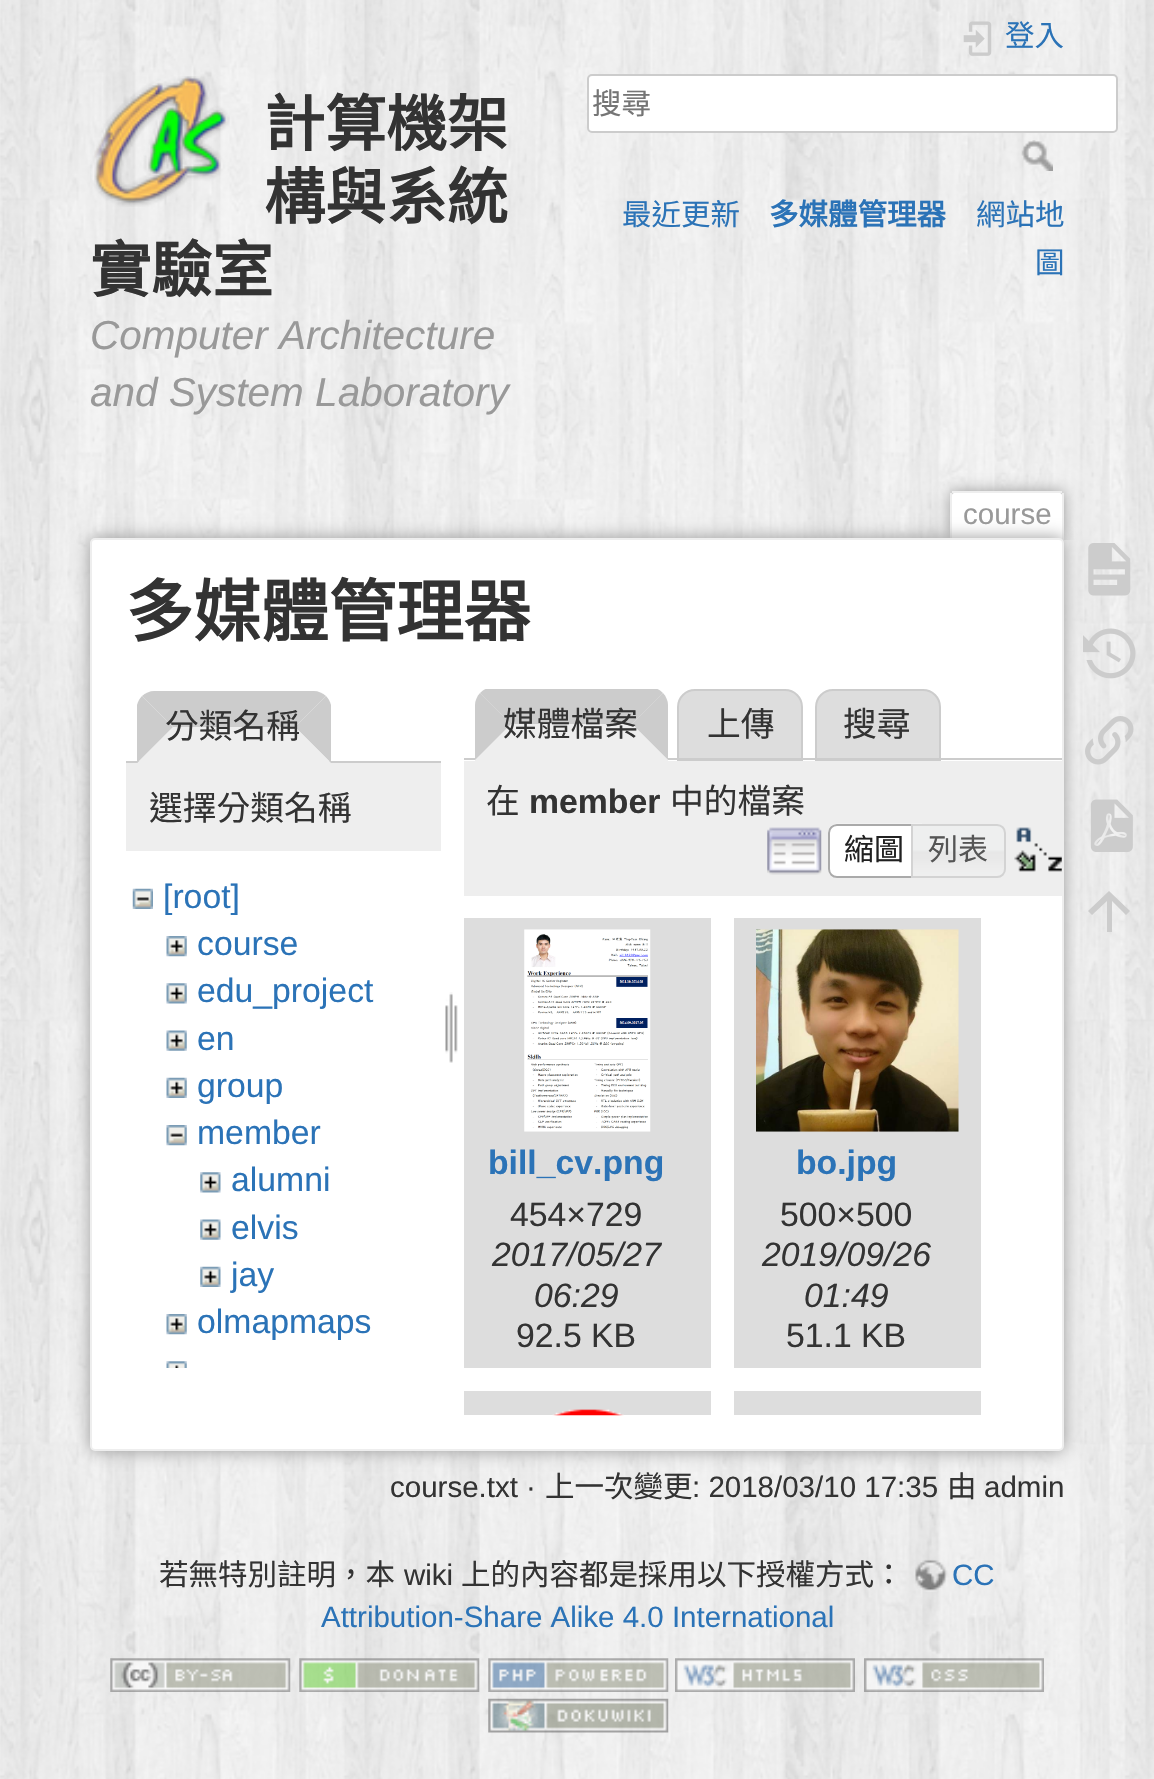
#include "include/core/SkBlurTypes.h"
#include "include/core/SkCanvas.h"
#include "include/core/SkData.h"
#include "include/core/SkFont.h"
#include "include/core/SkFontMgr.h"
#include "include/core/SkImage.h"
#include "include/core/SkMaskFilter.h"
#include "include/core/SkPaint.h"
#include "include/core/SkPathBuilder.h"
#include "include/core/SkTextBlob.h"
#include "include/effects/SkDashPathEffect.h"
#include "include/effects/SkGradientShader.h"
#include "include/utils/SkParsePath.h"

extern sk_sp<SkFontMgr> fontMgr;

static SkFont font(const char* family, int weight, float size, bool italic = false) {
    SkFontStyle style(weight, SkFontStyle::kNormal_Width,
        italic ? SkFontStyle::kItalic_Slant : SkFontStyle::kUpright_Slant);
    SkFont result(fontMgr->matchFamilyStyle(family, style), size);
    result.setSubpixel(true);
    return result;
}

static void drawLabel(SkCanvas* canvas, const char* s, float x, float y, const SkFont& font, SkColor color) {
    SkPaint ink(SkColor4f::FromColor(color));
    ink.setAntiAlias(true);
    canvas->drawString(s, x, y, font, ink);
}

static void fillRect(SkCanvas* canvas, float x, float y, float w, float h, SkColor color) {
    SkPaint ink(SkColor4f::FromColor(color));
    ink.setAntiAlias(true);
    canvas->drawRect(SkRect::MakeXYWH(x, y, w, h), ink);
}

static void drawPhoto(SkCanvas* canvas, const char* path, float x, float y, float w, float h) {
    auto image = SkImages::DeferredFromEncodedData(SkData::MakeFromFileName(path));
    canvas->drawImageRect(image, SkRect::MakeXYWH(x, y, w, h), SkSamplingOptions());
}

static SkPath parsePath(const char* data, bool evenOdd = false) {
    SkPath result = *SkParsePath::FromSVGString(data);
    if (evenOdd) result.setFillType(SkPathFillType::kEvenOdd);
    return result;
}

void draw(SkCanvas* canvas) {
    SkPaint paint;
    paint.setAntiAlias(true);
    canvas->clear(0xFFFFFFFF);
    drawPhoto(canvas, "assets/img1.png", 0, 0, 1154, 1779);
    drawPhoto(canvas, "assets/img2.png", 90, 76, 140, 131);
    SkFont font1 = font("Noto Sans CJK TC", 700, 61);
    drawLabel(canvas, "計算機架", 264, 146, font1, 0xFF333333);
    drawLabel(canvas, "構與系統", 264, 219, font1, 0xFF333333);
    drawLabel(canvas, "實驗室", 90, 292, font1, 0xFF333333);
    SkFont font2 = font("Liberation Sans", 400, 40.5f, true);
    drawLabel(canvas, "Computer Architecture", 90, 349, font2, 0xFF999999);
    drawLabel(canvas, "and System Laboratory", 90, 406, font2, 0xFF999999);
    drawPhoto(canvas, "assets/img3.png", 963, 21, 29, 35);
    SkFont font3 = font("Noto Sans CJK TC", 400, 29.5f);
    drawLabel(canvas, "登入", 1005, 46, font3, 0xFF2B73B7);
    paint.setColor(0xFFFFFFFF);
    canvas->drawRoundRect(SkRect::MakeXYWH(588, 75, 529, 57), 4, 4, paint);
    paint.setStroke(true);
    paint.setStrokeWidth(2);
    paint.setColor(0xFFCCCCCC);
    canvas->drawRoundRect(SkRect::MakeXYWH(588, 75, 529, 57), 4, 4, paint);
    drawLabel(canvas, "搜尋", 592, 114, font3, 0xFF757575);
    drawPhoto(canvas, "assets/img4.png", 1021, 140, 32, 31);
    drawLabel(canvas, "最近更新", 622, 225, font3, 0xFF2B73B7);
    SkFont font4 = font("Noto Sans CJK TC", 700, 29.5f);
    drawLabel(canvas, "多媒體管理器", 769, 225, font4, 0xFF2B73B7);
    drawLabel(canvas, "網站地", 976, 225, font3, 0xFF2B73B7);
    drawLabel(canvas, "圖", 1035, 273, font3, 0xFF2B73B7);
    canvas->save();
    canvas->clipRect(SkRect::MakeXYWH(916, 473, 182, 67));
    paint.setStroke(false);
    paint.setColor(0xFF999999);
    paint.setMaskFilter(SkMaskFilter::MakeBlur(kNormal_SkBlurStyle, 7.5f));
    canvas->drawRoundRect(SkRect::MakeXYWH(950, 491, 114, 49), 5, 5, paint);
    paint.setMaskFilter(nullptr);
    canvas->restore();
    paint.setColor(0xFFFFFFFF);
    canvas->drawPath(parsePath("M954 493H1060C1061 493 1062 494 1062 495V540H952V495C952 494 953 493 954 493Z"), paint);
    fillRect(canvas, 952, 491, 110, 2, 0xFFEEEEEE);
    fillRect(canvas, 1062, 493, 2, 47, 0xFFEEEEEE);
    fillRect(canvas, 950, 493, 2, 47, 0xFFEEEEEE);
    SkFont font5 = font("Liberation Sans", 400, 29.5f);
    drawLabel(canvas, "course", 963, 524, font5, 0xFF999999);
    paint.setColor(0xFF999999);
    paint.setMaskFilter(SkMaskFilter::MakeBlur(kNormal_SkBlurStyle, 8.5f));
    canvas->drawRoundRect(SkRect::MakeXYWH(90, 538, 974, 913), 5, 5, paint);
    paint.setMaskFilter(nullptr);
    paint.setColor(0xFFFFFFFF);
    canvas->drawRoundRect(SkRect::MakeXYWH(91, 539, 972, 911), 4, 4, paint);
    paint.setStroke(true);
    paint.setColor(0xFFEEEEEE);
    canvas->drawRoundRect(SkRect::MakeXYWH(91, 539, 972, 911), 4, 4, paint);
    SkFont font6 = font("Noto Sans CJK TC", 700, 67.5f);
    drawLabel(canvas, "多媒體管理器", 126, 636, font6, 0xFF333333);
    paint.setStroke(false);
    paint.setColor(0xFFCCCCCC);
    canvas->drawPath(parsePath("M154 691C150 691 145 693 142 696L173 727H295L326 696C323 693 318 691 314 691Z"), paint);
    fillRect(canvas, 126, 761, 315, 2, 0xFFCCCCCC);
    canvas->drawPath(parsePath("M331 705C330 701 328 698 326 696L295 727L331 763Z"), paint);
    paint.setColor(0xFFEEEEEE);
    canvas->drawPath(parsePath("M331 763L295 727H173L137 763Z"), paint);
    paint.setColor(0xFFCCCCCC);
    canvas->drawPath(parsePath("M137 763L173 727L142 696C140 698 138 701 137 705Z"), paint);
    SkFont font7 = font("Noto Sans CJK TC", 400, 33.75f);
    drawLabel(canvas, "分類名稱", 165, 738, font7, 0xFF333333);
    fillRect(canvas, 126, 763, 315, 88, 0xFFEEEEEE);
    drawLabel(canvas, "選擇分類名稱", 149, 820, font7, 0xFF333333);
    drawPhoto(canvas, "assets/img5.png", 132, 888, 21, 21);
    SkFont font8 = font("Liberation Sans", 400, 33.75f);
    drawLabel(canvas, "[root]", 163, 908, font8, 0xFF2B73B7);
    drawPhoto(canvas, "assets/img6.png", 166, 936, 21, 21);
    drawLabel(canvas, "course", 197, 955, font8, 0xFF2B73B7);
    drawPhoto(canvas, "assets/img7.png", 166, 983, 21, 21);
    drawLabel(canvas, "edu_project", 197, 1002, font8, 0xFF2B73B7);
    drawPhoto(canvas, "assets/img8.png", 166, 1030, 21, 21);
    drawLabel(canvas, "en", 197, 1050, font8, 0xFF2B73B7);
    drawPhoto(canvas, "assets/img9.png", 166, 1077, 21, 21);
    drawLabel(canvas, "group", 197, 1097, font8, 0xFF2B73B7);
    drawPhoto(canvas, "assets/img10.png", 166, 1125, 21, 21);
    drawLabel(canvas, "member", 197, 1144, font8, 0xFF2B73B7);
    drawPhoto(canvas, "assets/img11.png", 200, 1172, 21, 21);
    drawLabel(canvas, "alumni", 231, 1191, font8, 0xFF2B73B7);
    drawPhoto(canvas, "assets/img12.png", 200, 1219, 21, 21);
    drawLabel(canvas, "elvis", 231, 1239, font8, 0xFF2B73B7);
    drawPhoto(canvas, "assets/img13.png", 200, 1266, 21, 21);
    drawLabel(canvas, "jay", 231, 1286, font8, 0xFF2B73B7);
    drawPhoto(canvas, "assets/img6.png", 166, 1314, 21, 21);
    drawLabel(canvas, "olmapmaps", 197, 1333, font8, 0xFF2B73B7);
    drawPhoto(canvas, "assets/img14.png", 166, 1361, 21, 7);
    drawPhoto(canvas, "assets/img15.png", 445, 992, 13, 71);
    paint.setColor(0xFFDDDDDD);
    canvas->drawPath(parsePath("M695 690H785C794.5 690 802 697.5 802 707V760H678V707C678 697.5 685.5 690 695 690Z"), paint);
    paint.setStroke(true);
    paint.setColor(0xFFCCCCCC);
    canvas->drawPath(parsePath("M695 690H785C794.5 690 802 697.5 802 707V760H678V707C678 697.5 685.5 690 695 690Z"), paint);
    paint.setStroke(false);
    paint.setColor(0xFFDDDDDD);
    canvas->drawPath(parsePath("M833 690H923C932.5 690 940 697.5 940 707V760H816V707C816 697.5 823.5 690 833 690Z"), paint);
    paint.setStroke(true);
    paint.setColor(0xFFCCCCCC);
    canvas->drawPath(parsePath("M833 690H923C932.5 690 940 697.5 940 707V760H816V707C816 697.5 823.5 690 833 690Z"), paint);
    fillRect(canvas, 464, 758, 598, 2, 0xFFCCCCCC);
    paint.setStroke(false);
    paint.setColor(0xFFEEEEEE);
    canvas->drawPath(parsePath("M493 689H650C660 689 668 697 668 707V761H475V707C475 697 483 689 493 689Z"), paint);
    canvas->save();
    canvas->clipRect(SkRect::MakeXYWH(464, 689, 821, 72));
    paint.setColor(0xFFCCCCCC);
    canvas->drawPath(parsePath("M655 688H488C485 689 482 691 480 693L511 724H632L663 693C661 691 658 689 655 688Z"), paint);
    canvas->restore();
    canvas->drawPath(parsePath("M663 693L632 724L668 760V705C668 701 666 696 663 693Z"), paint);
    paint.setColor(0xFFEEEEEE);
    canvas->drawPath(parsePath("M668 760L632 724H511L475 760Z"), paint);
    paint.setColor(0xFFCCCCCC);
    canvas->drawPath(parsePath("M475 760L511 724L480 693C477 696 475 701 475 705Z"), paint);
    drawLabel(canvas, "媒體檔案", 503, 736, font7, 0xFF333333);
    drawLabel(canvas, "上傳", 707, 736, font7, 0xFF333333);
    drawLabel(canvas, "搜尋", 843, 736, font7, 0xFF333333);
    fillRect(canvas, 464, 761, 598, 135, 0xFFEEEEEE);
    drawLabel(canvas, "在", 486, 813, font7, 0xFF333333);
    SkFont font9 = font("Liberation Sans", 700, 33.75f);
    drawLabel(canvas, "member", 529, 813, font9, 0xFF333333);
    drawLabel(canvas, "中的檔案", 670, 813, font7, 0xFF333333);
    drawPhoto(canvas, "assets/img16.png", 767, 827, 55, 48);
    paint.setColor(0xFFFFFFFF);
    canvas->drawPath(parsePath("M837 824H923V878H837C832 878 828 874 828 869V833C828 828 832 824 837 824Z"), paint);
    drawPhoto(canvas, "assets/img17.png", 828, 823, 94, 7);
    paint.setStroke(true);
    paint.setColor(0xFFAAAAAA);
    canvas->drawPath(parsePath("M837 825H922V877H837C832.5 877 829 873.5 829 869V833C829 828.5 832.5 825 837 825Z"), paint);
    SkFont font10 = font("Noto Sans CJK TC", 400, 30);
    drawLabel(canvas, "縮圖", 844, 860, font10, 0xFF212121);
    drawPhoto(canvas, "assets/img18.png", 913, 824, 93, 53);
    paint.setColor(0xFFD3D3D3);
    canvas->drawPath(parsePath("M912 825H997C1001.5 825 1005 828.5 1005 833V869C1005 873.5 1001.5 877 997 877H912Z"), paint);
    drawLabel(canvas, "列表", 928, 860, font10, 0xFF555555);
    drawPhoto(canvas, "assets/img19.png", 1014, 827, 48, 45);
    fillRect(canvas, 464, 918, 247, 450, 0xFFDDDDDD);
    drawPhoto(canvas, "assets/img20.png", 524, 929, 127, 203);
    drawLabel(canvas, "bill_cv.png", 488, 1174, font9, 0xFF2B73B7);
    drawLabel(canvas, "454×729", 510, 1226, font8, 0xFF333333);
    SkFont font11 = font("Liberation Sans", 400, 33.75f, true);
    drawLabel(canvas, "2017/05/27", 492, 1266, font11, 0xFF333333);
    drawLabel(canvas, "06:29", 534, 1307, font11, 0xFF333333);
    drawLabel(canvas, "92.5 KB", 516, 1347, font8, 0xFF333333);
    fillRect(canvas, 734, 918, 247, 450, 0xFFDDDDDD);
    drawPhoto(canvas, "assets/img21.png", 756, 929, 203, 203);
    drawLabel(canvas, "bo.jpg", 796, 1174, font9, 0xFF2B73B7);
    drawLabel(canvas, "500×500", 780, 1226, font8, 0xFF333333);
    drawLabel(canvas, "2019/09/26", 762, 1266, font11, 0xFF333333);
    drawLabel(canvas, "01:49", 804, 1307, font11, 0xFF333333);
    drawLabel(canvas, "51.1 KB", 786, 1347, font8, 0xFF333333);
    fillRect(canvas, 464, 1391, 247, 24, 0xFFDDDDDD);
    drawPhoto(canvas, "assets/img22.png", 552, 1409, 72, 7);
    fillRect(canvas, 734, 1391, 247, 24, 0xFFDDDDDD);
    drawLabel(canvas, "course.txt ·", 390, 1497, font5, 0xFF333333);
    drawLabel(canvas, "上一次變更", 545, 1497, font3, 0xFF333333);
    drawLabel(canvas, ": 2018/03/10 17:35", 692, 1497, font5, 0xFF333333);
    drawLabel(canvas, "由", 947, 1497, font3, 0xFF333333);
    drawLabel(canvas, "admin", 984, 1497, font5, 0xFF333333);
    drawPhoto(canvas, "assets/img23.png", 1088, 543, 43, 53);
    drawPhoto(canvas, "assets/img24.png", 1083, 628, 53, 51);
    drawPhoto(canvas, "assets/img25.png", 1085, 716, 49, 49);
    drawPhoto(canvas, "assets/img26.png", 1090, 799, 43, 53);
    paint.setStroke(false);
    paint.setColor(0xFFCCCCCC);
    canvas->drawPath(parsePath("M1112 932H1107V901L1092 915L1088 911L1109 891L1130 911L1126 915L1112 901Z"), paint);
    drawLabel(canvas, "若無特別註明，本", 159, 1585, font3, 0xFF333333);
    drawLabel(canvas, "wiki", 404, 1585, font5, 0xFF333333);
    drawLabel(canvas, "上的內容都是採用以下授權方式：", 461, 1585, font3, 0xFF333333);
    drawPhoto(canvas, "assets/img27.png", 915, 1559, 32, 33);
    drawLabel(canvas, "CC", 952, 1585, font5, 0xFF2B73B7);
    drawLabel(canvas, "Attribution-Share Alike 4.0 International", 321, 1627, font5, 0xFF2B73B7);
    drawPhoto(canvas, "assets/img28.png", 110, 1658, 181, 34);
    drawPhoto(canvas, "assets/img29.png", 299, 1658, 181, 34);
    drawPhoto(canvas, "assets/img30.png", 488, 1658, 181, 34);
    drawPhoto(canvas, "assets/img31.png", 675, 1658, 180, 34);
    drawPhoto(canvas, "assets/img32.png", 864, 1658, 180, 34);
    drawPhoto(canvas, "assets/img33.png", 488, 1698, 181, 35);
}
